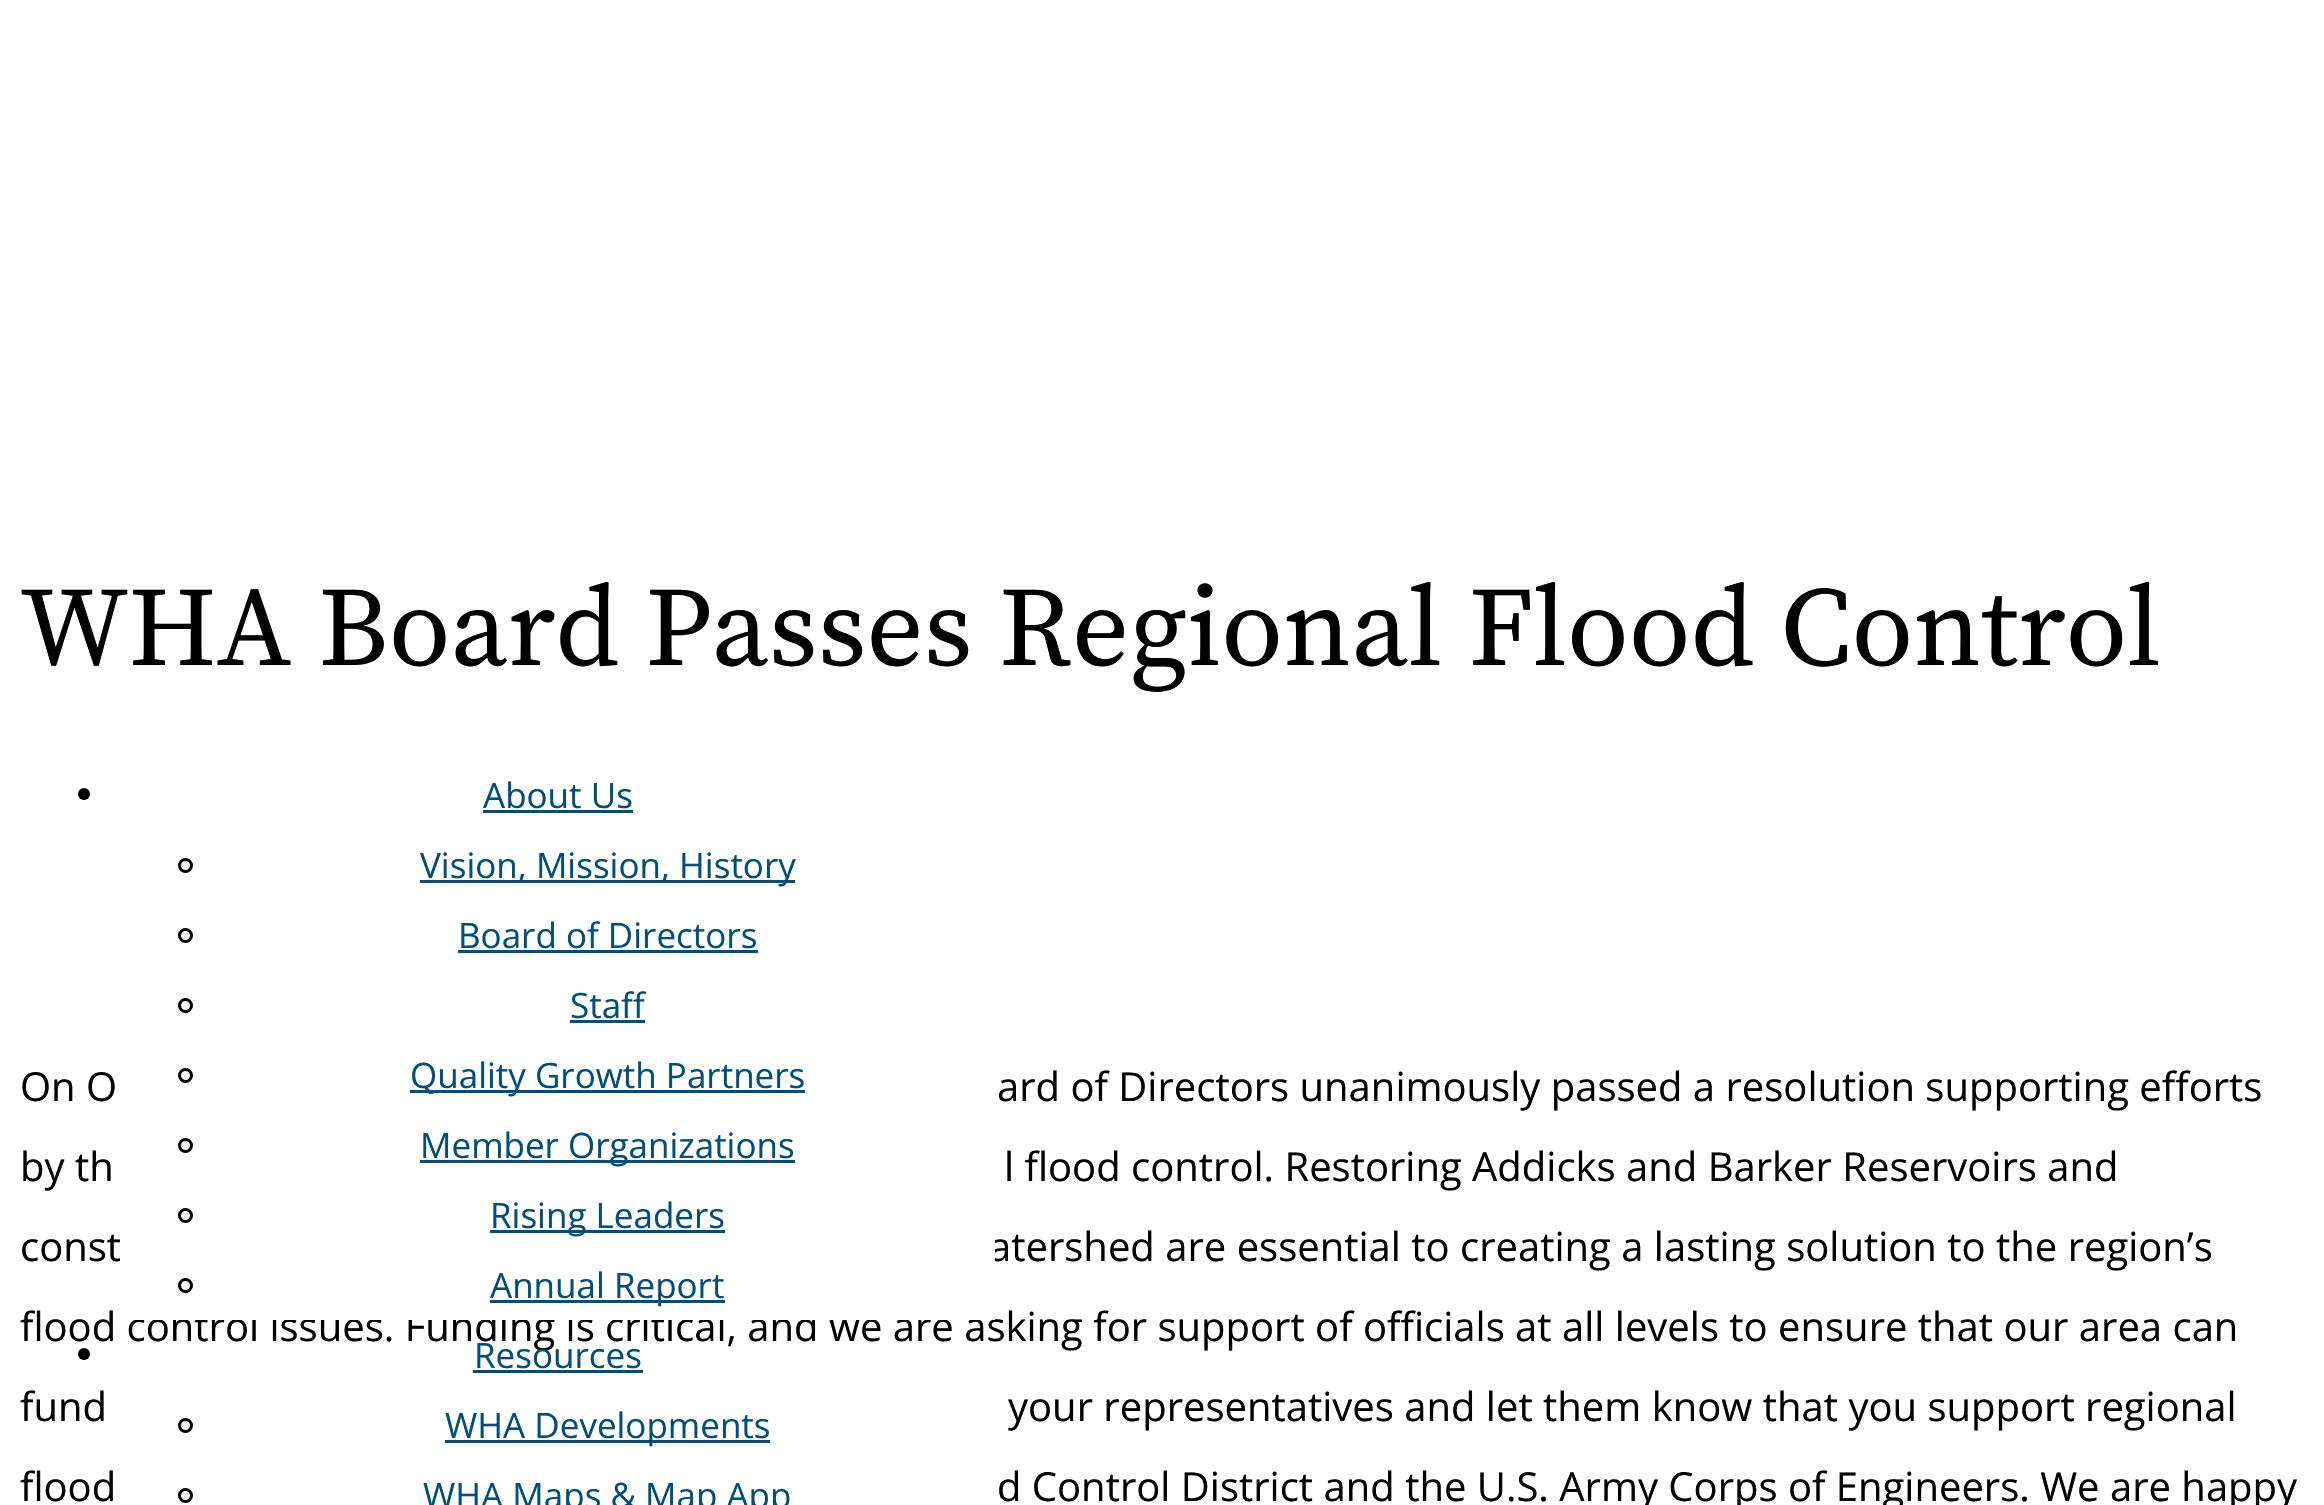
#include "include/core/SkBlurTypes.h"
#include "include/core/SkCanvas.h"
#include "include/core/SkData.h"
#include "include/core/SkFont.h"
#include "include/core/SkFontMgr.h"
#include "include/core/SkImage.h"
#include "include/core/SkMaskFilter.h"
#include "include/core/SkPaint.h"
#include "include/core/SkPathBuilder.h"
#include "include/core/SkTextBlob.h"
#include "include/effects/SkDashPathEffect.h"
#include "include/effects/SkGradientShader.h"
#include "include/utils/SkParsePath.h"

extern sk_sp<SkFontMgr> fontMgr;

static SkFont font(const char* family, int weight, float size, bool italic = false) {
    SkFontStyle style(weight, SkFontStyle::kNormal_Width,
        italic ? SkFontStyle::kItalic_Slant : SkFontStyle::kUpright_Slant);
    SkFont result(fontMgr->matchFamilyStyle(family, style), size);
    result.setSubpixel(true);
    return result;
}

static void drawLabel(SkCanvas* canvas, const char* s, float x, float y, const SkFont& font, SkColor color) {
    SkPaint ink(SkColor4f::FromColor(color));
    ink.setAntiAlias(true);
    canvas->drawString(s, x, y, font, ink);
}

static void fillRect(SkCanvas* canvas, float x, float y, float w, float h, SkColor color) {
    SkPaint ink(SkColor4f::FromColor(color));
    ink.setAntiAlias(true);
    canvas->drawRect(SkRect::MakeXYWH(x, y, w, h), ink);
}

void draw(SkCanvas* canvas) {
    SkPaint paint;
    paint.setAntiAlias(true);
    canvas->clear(0xFFFFFFFF);
    SkFont font1 = font("Source Serif Pro", 400, 112.5f);
    drawLabel(canvas, "WHA Board Passes Regional Flood Control", 20, 665, font1, 0xFF000000);
    SkFont font2 = font("Open Sans", 400, 40);
    drawLabel(canvas, "On O", 20, 1101, font2, 0xFF000000);
    drawLabel(canvas, "ard of Directors unanimously passed a resolution supporting efforts", 997, 1101, font2, 0xFF000000);
    drawLabel(canvas, "by th", 20, 1181, font2, 0xFF000000);
    drawLabel(canvas, "l flood control. Restoring Addicks and Barker Reservoirs and", 1004, 1181, font2, 0xFF000000);
    drawLabel(canvas, "const", 20, 1261, font2, 0xFF000000);
    drawLabel(canvas, "atershed are essential to creating a lasting solution to the region’s", 989, 1261, font2, 0xFF000000);
    drawLabel(canvas, "flood control issues. Funding is critical, and we are asking for support of officials at all levels to ensure that our area can", 20, 1341, font2, 0xFF000000);
    drawLabel(canvas, "fund", 20, 1421, font2, 0xFF000000);
    drawLabel(canvas, "your representatives and let them know that you support regional", 1008, 1421, font2, 0xFF000000);
    drawLabel(canvas, "flood", 20, 1501, font2, 0xFF000000);
    drawLabel(canvas, "d Control District and the U.S. Army Corps of Engineers. We are happy", 997, 1501, font2, 0xFF000000);
    paint.setColor(0xFF000000);
    canvas->drawCircle(84, 794, 6, paint);
    SkFont font3 = font("Open Sans", 400, 35);
    drawLabel(canvas, "About Us", 483, 808, font3, 0xFF004E7D);
    fillRect(canvas, 483, 810, 150, 3, 0xFF004E7D);
    fillRect(canvas, 120, 1240, 875, 80, 0xFFFFFFFF);
    paint.setStroke(true);
    paint.setStrokeWidth(3);
    canvas->drawCircle(185.5f, 865.5f, 6, paint);
    fillRect(canvas, 420, 880, 375, 3, 0xFF004E7D);
    drawLabel(canvas, "Vision, Mission, History", 420, 878, font3, 0xFF004E7D);
    canvas->drawCircle(185.5f, 935.5f, 6, paint);
    drawLabel(canvas, "Board of Directors", 458, 948, font3, 0xFF004E7D);
    fillRect(canvas, 458, 950, 300, 3, 0xFF004E7D);
    canvas->drawCircle(185.5f, 1005.5f, 6, paint);
    drawLabel(canvas, "Staff", 570, 1018, font3, 0xFF004E7D);
    fillRect(canvas, 570, 1020, 75, 3, 0xFF004E7D);
    canvas->drawCircle(185.5f, 1075.5f, 6, paint);
    fillRect(canvas, 410, 1090, 395, 3, 0xFF004E7D);
    drawLabel(canvas, "Quality Growth Partners", 410, 1088, font3, 0xFF004E7D);
    canvas->drawCircle(185.5f, 1145.5f, 6, paint);
    fillRect(canvas, 420, 1160, 375, 3, 0xFF004E7D);
    drawLabel(canvas, "Member Organizations", 420, 1158, font3, 0xFF004E7D);
    canvas->drawCircle(185.5f, 1215.5f, 6, paint);
    fillRect(canvas, 490, 1230, 235, 3, 0xFF004E7D);
    drawLabel(canvas, "Rising Leaders", 490, 1228, font3, 0xFF004E7D);
    canvas->drawCircle(185.5f, 1285.5f, 6, paint);
    fillRect(canvas, 490, 1300, 235, 3, 0xFF004E7D);
    drawLabel(canvas, "Annual Report", 490, 1298, font3, 0xFF004E7D);
    paint.setStroke(false);
    canvas->drawCircle(84, 1354, 6, paint);
    drawLabel(canvas, "Resources", 474, 1368, font3, 0xFF004E7D);
    fillRect(canvas, 473, 1370, 170, 3, 0xFF004E7D);
    paint.setStroke(true);
    canvas->drawCircle(185.5f, 1425.5f, 6, paint);
    fillRect(canvas, 445, 1440, 325, 3, 0xFF004E7D);
    drawLabel(canvas, "WHA Developments", 445, 1438, font3, 0xFF004E7D);
    canvas->drawCircle(185.5f, 1495.5f, 6, paint);
    drawLabel(canvas, "WHA Maps & Map App", 423, 1508, font3, 0xFF004E7D);
}
